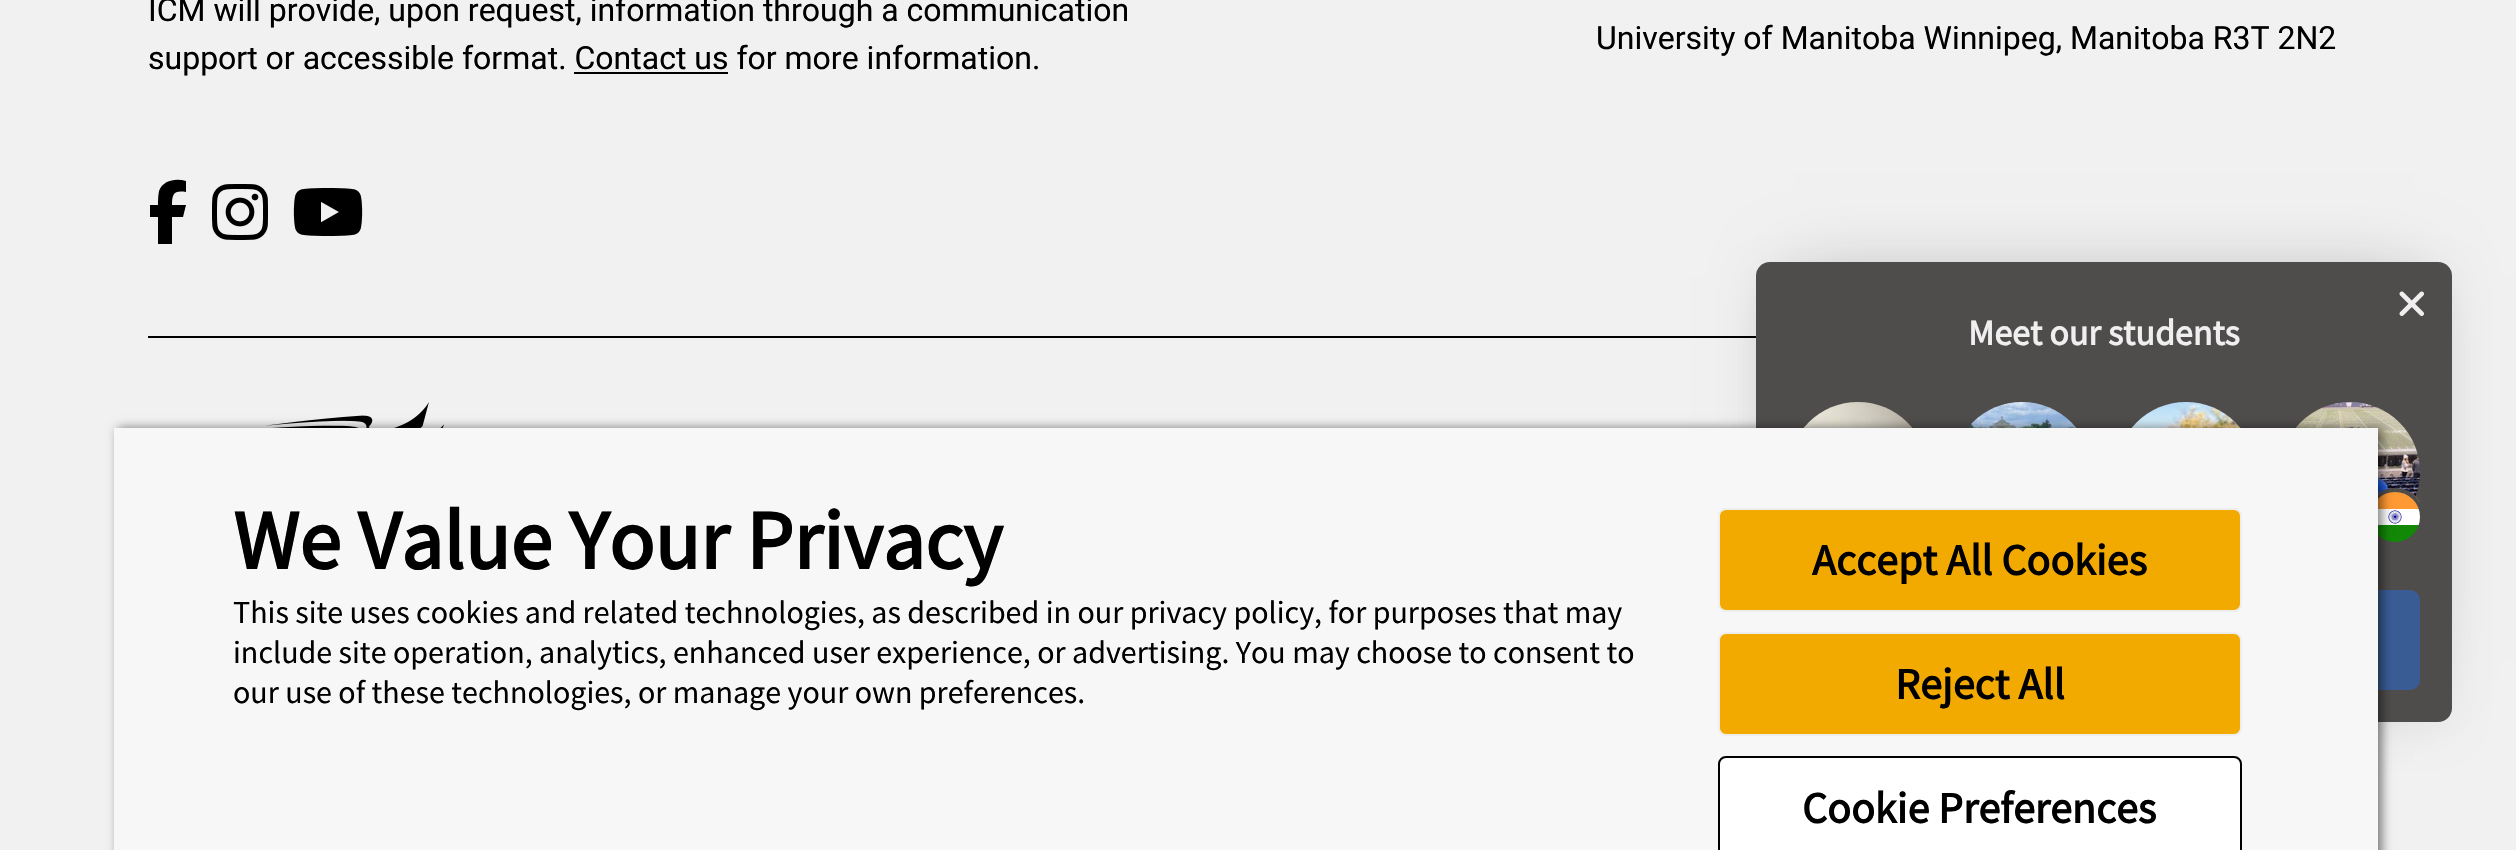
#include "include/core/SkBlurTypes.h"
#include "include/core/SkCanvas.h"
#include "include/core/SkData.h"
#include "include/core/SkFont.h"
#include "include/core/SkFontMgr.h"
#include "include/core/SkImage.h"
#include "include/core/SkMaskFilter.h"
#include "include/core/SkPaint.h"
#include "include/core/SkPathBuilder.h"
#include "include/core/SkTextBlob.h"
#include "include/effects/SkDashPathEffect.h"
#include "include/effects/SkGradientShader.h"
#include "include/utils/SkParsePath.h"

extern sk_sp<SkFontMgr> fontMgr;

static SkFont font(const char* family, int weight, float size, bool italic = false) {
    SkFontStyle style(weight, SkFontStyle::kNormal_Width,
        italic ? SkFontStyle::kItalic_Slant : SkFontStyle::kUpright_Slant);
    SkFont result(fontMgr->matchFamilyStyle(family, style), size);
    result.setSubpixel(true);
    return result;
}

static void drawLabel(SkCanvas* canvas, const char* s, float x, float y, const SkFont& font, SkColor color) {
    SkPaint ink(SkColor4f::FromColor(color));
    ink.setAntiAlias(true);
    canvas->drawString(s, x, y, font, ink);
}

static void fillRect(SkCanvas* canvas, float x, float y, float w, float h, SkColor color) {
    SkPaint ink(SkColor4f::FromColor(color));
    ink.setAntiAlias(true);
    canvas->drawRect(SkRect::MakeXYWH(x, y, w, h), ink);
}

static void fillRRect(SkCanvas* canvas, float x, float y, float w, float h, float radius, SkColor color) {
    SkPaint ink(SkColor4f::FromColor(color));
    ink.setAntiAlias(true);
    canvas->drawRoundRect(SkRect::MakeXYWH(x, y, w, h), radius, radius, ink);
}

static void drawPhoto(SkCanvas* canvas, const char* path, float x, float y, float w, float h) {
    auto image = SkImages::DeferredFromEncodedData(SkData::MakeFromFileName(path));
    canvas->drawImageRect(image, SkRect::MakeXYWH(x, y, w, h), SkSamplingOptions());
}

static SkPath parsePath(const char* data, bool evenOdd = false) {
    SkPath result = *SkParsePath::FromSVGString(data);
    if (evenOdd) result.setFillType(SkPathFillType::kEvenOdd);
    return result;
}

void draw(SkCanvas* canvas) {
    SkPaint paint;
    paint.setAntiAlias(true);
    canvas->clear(0xFFF1F1F1);
    SkFont font1 = font("Roboto", 400, 32);
    drawLabel(canvas, "ICM will provide, upon request, information through a communication", 148, 21, font1, 0xFF000000);
    drawLabel(canvas, "support or accessible format. Contact us for more information.", 148, 69, font1, 0xFF000000);
    fillRect(canvas, 574, 72, 154, 2, 0xFF000000);
    paint.setColor(0xFF000000);
    canvas->drawPath(parsePath("M158 217V244V217V244H172V217H183L186 205H172C172 194 174 190 186 192V181C176 178 163 180 159 191C158 196 158 201 158 205H150V217Z"), paint);
    drawPhoto(canvas, "assets/img1.png", 212, 184, 56, 56);
    drawPhoto(canvas, "assets/img2.png", 293, 188, 70, 48);
    drawLabel(canvas, "University of Manitoba Winnipeg, Manitoba R3T 2N2", 1596, 49, font1, 0xFF000000);
    fillRect(canvas, 148, 336, 1608, 2, 0xFF000000);
    drawPhoto(canvas, "assets/img3.png", 265, 402, 179, 26);
    paint.setColor(0x33000000);
    paint.setMaskFilter(SkMaskFilter::MakeBlur(kNormal_SkBlurStyle, 35));
    canvas->drawRect(SkRect::MakeXYWH(1794, 276, 620, 384), paint);
    paint.setMaskFilter(nullptr);
    paint.setColor(0x1A000000);
    paint.setMaskFilter(SkMaskFilter::MakeBlur(kNormal_SkBlurStyle, 22));
    canvas->drawRoundRect(SkRect::MakeXYWH(1768, 284, 672, 436), 2, 2, paint);
    paint.setMaskFilter(nullptr);
    fillRRect(canvas, 1756, 262, 696, 460, 14, 0xFF4F4C4C);
    drawPhoto(canvas, "assets/img4.png", 2399, 291, 25, 25);
    SkFont font2 = font("Source Sans Pro", 700, 36);
    drawLabel(canvas, "Meet our students", 1968, 345, font2, 0xFFEFEFEF);
    drawPhoto(canvas, "assets/img5.png", 1803, 402, 110, 26);
    drawPhoto(canvas, "assets/img6.png", 1967, 402, 110, 26);
    drawPhoto(canvas, "assets/img7.png", 2131, 402, 110, 26);
    drawPhoto(canvas, "assets/img8.png", 2295, 402, 125, 95);
    drawPhoto(canvas, "assets/img9.png", 2378, 492, 42, 50);
    canvas->save();
    canvas->clipRect(SkRect::MakeXYWH(1788, 402, 632, 140));
    paint.setStroke(true);
    paint.setStrokeWidth(4);
    paint.setColor(0xFF4F4C4C);
    canvas->drawCircle(2395, 517, 27, paint);
    canvas->restore();
    fillRRect(canvas, 1788, 590, 632, 100, 10, 0xFF3A5C95);
    paint.setStroke(false);
    paint.setColor(0x80000000);
    paint.setMaskFilter(SkMaskFilter::MakeBlur(kNormal_SkBlurStyle, 5));
    canvas->drawRect(SkRect::MakeXYWH(118, 428, 2264, 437), paint);
    paint.setMaskFilter(nullptr);
    fillRect(canvas, 114, 428, 2264, 422, 0xFFF7F7F7);
    SkFont font3 = font("Source Sans Pro", 700, 84);
    drawLabel(canvas, "We Value Your Privacy", 233, 569, font3, 0xFF000000);
    SkFont font4 = font("Source Sans Pro", 400, 32);
    drawLabel(canvas, "This site uses cookies and related technologies, as described in our privacy policy, for purposes that may", 233, 623, font4, 0xFF000000);
    drawLabel(canvas, "include site operation, analytics, enhanced user experience, or advertising. You may choose to consent to", 233, 663, font4, 0xFF000000);
    drawLabel(canvas, "our use of these technologies, or manage your own preferences.", 233, 703, font4, 0xFF000000);
    paint.setColor(0xFFF2A900);
    canvas->drawRoundRect(SkRect::MakeXYWH(1719, 509, 522, 102), 7, 7, paint);
    paint.setStroke(true);
    paint.setStrokeWidth(2);
    paint.setColor(0xFFEEEEEE);
    canvas->drawRoundRect(SkRect::MakeXYWH(1719, 509, 522, 102), 7, 7, paint);
    SkFont font5 = font("Source Sans Pro", 700, 44);
    drawLabel(canvas, "Accept All Cookies", 1812, 575, font5, 0xFF000000);
    paint.setStroke(false);
    paint.setColor(0xFFF2A900);
    canvas->drawRoundRect(SkRect::MakeXYWH(1719, 633, 522, 102), 7, 7, paint);
    paint.setStroke(true);
    paint.setColor(0xFFEEEEEE);
    canvas->drawRoundRect(SkRect::MakeXYWH(1719, 633, 522, 102), 7, 7, paint);
    drawLabel(canvas, "Reject All", 1895, 699, font5, 0xFF000000);
    paint.setStroke(false);
    paint.setColor(0xFFFFFFFF);
    canvas->drawRoundRect(SkRect::MakeXYWH(1719, 757, 522, 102), 7, 7, paint);
    paint.setStroke(true);
    paint.setColor(0xFF000000);
    canvas->drawRoundRect(SkRect::MakeXYWH(1719, 757, 522, 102), 7, 7, paint);
    drawLabel(canvas, "Cookie Preferences", 1802, 823, font5, 0xFF000000);
}
